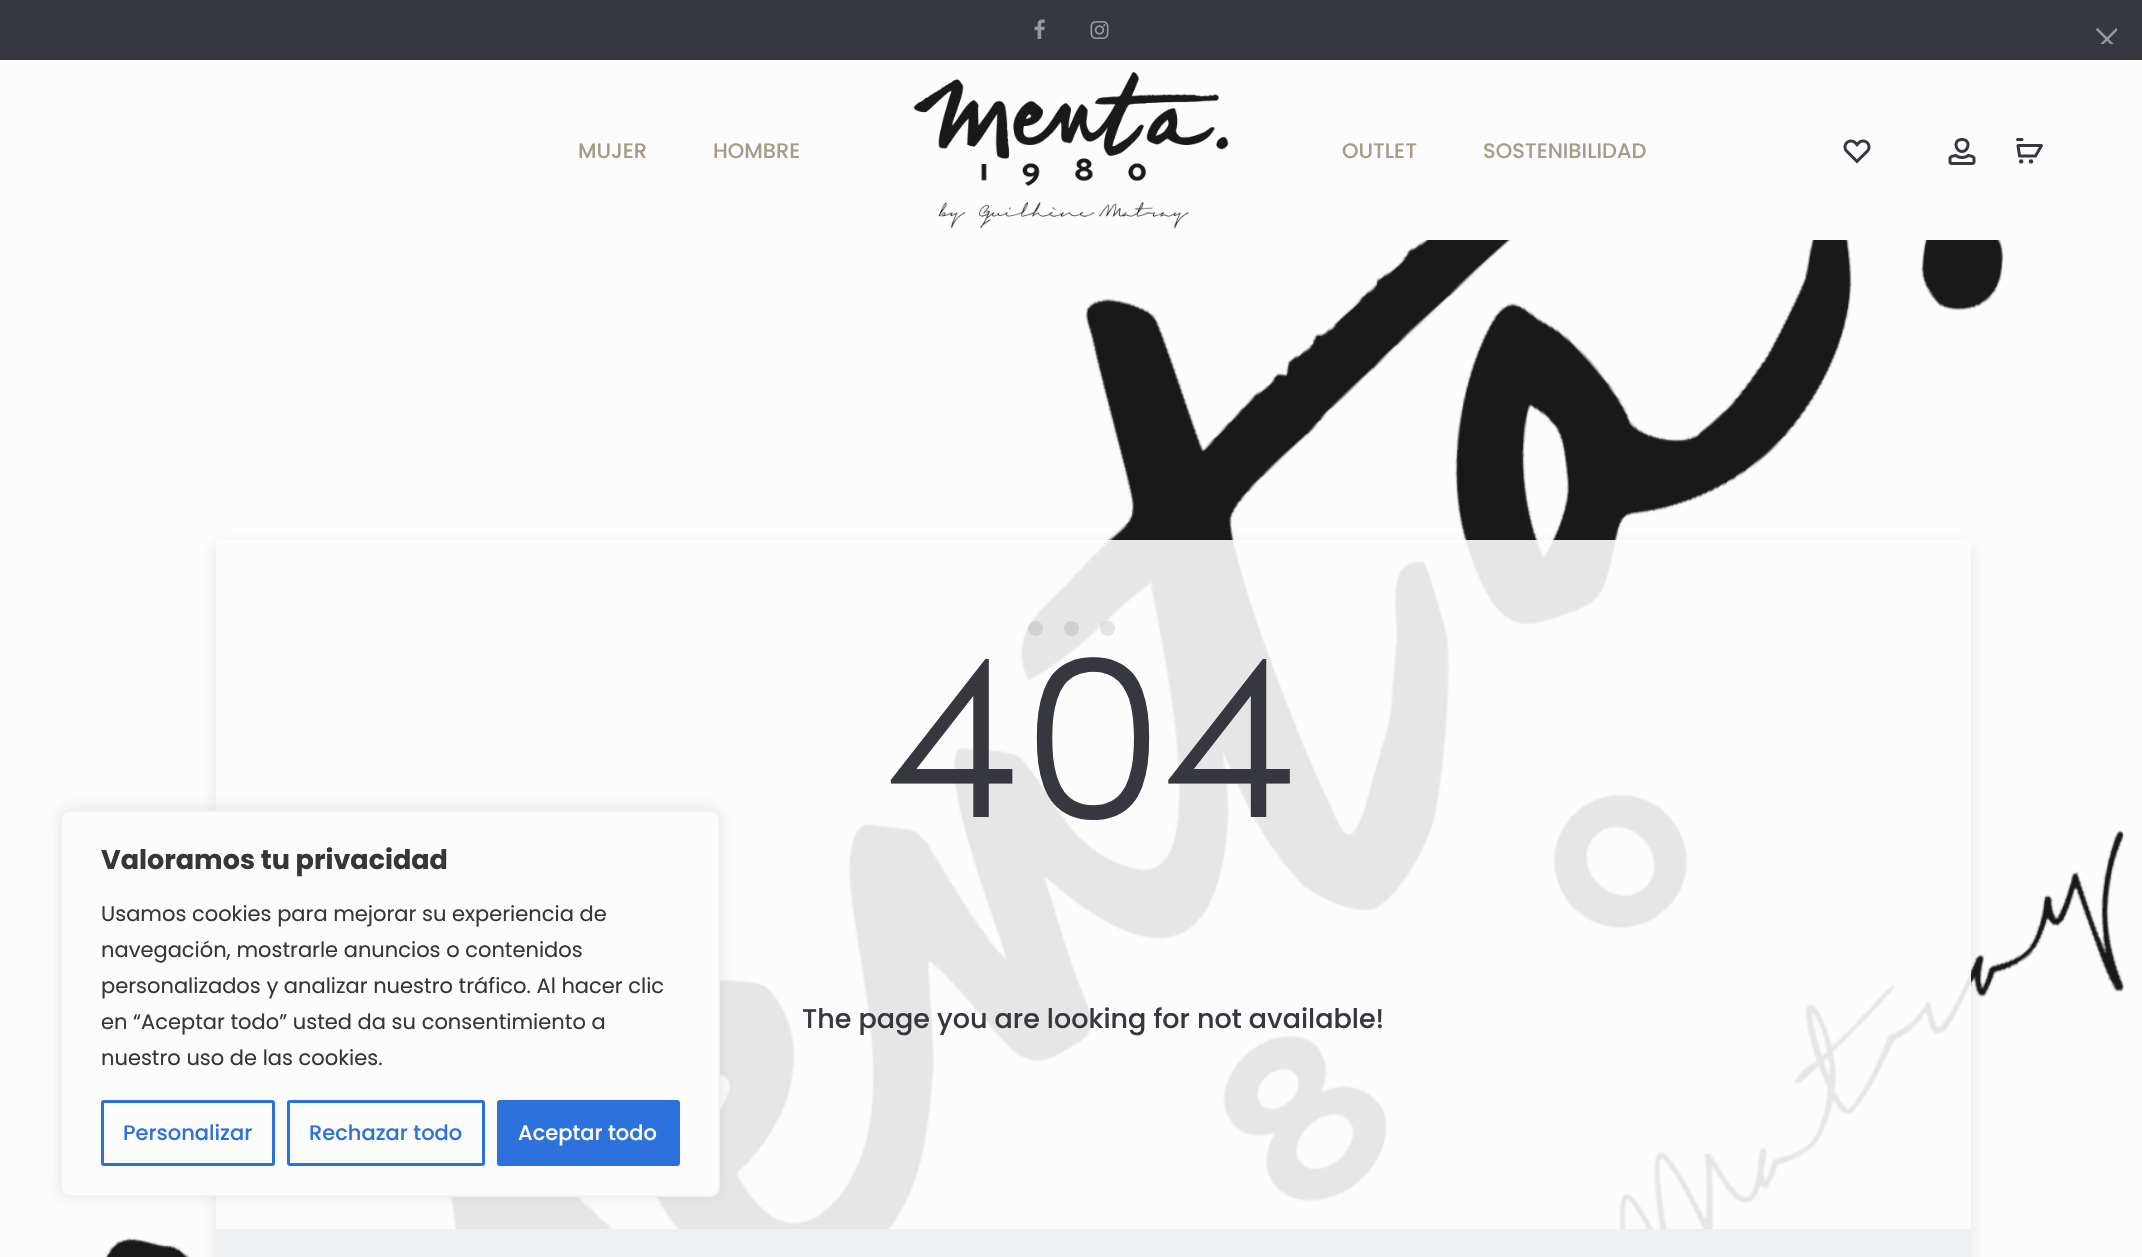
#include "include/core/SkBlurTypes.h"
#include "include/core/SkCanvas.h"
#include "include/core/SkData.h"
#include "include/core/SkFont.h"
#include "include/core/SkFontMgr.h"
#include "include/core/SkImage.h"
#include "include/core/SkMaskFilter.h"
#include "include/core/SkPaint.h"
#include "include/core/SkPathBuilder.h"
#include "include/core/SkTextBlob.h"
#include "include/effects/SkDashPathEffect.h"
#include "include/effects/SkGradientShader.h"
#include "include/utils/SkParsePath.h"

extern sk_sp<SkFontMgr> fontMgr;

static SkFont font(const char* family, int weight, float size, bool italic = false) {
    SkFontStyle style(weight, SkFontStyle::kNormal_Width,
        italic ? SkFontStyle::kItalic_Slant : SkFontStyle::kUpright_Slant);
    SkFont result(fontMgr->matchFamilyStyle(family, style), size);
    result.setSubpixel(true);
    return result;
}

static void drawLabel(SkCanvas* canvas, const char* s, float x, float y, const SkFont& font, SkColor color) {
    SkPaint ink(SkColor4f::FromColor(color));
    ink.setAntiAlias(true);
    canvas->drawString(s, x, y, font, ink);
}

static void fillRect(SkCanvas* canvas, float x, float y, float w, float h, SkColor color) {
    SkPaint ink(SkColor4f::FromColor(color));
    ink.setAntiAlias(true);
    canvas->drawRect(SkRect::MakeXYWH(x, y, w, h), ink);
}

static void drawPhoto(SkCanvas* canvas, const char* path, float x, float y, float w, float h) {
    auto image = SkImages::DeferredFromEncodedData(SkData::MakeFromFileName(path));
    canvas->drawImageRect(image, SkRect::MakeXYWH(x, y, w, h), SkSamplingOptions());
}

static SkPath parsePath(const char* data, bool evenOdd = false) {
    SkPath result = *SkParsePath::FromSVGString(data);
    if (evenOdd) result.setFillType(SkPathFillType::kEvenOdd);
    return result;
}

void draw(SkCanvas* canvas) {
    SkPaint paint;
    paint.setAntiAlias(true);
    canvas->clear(0xFFFBFCFB);
    drawPhoto(canvas, "assets/img1.png", 105, 240, 2020, 1017);
    fillRect(canvas, 0, 0, 2142, 60, 0xFF37383F);
    drawPhoto(canvas, "assets/img2.png", 1034, 19, 11, 20);
    drawPhoto(canvas, "assets/img3.png", 1090, 21, 19, 18);
    drawPhoto(canvas, "assets/img4.png", 2096, 28, 21, 16);
    SkFont font1 = font("Poppins", 500, 21);
    drawLabel(canvas, "MUJER", 578, 158, font1, 0xFFA49C89);
    drawLabel(canvas, "HOMBRE", 713, 158, font1, 0xFFA49C89);
    drawPhoto(canvas, "assets/img5.png", 913, 71, 316, 158);
    drawLabel(canvas, "OUTLET", 1342, 158, font1, 0xFFA49C89);
    drawLabel(canvas, "SOSTENIBILIDAD", 1483, 158, font1, 0xFFA49C89);
    drawPhoto(canvas, "assets/img6.png", 1843, 139, 28, 25);
    drawPhoto(canvas, "assets/img7.png", 1948, 138, 28, 27);
    paint.setStroke(true);
    paint.setStrokeWidth(3);
    paint.setStrokeJoin(SkPaint::kRound_Join);
    paint.setColor(0xFF37383F);
    canvas->drawPath(parsePath("M2018 145.5L2019.5 156H2035.5L2041.5 145.5Z"), paint);
    paint.setStroke(false);
    canvas->drawCircle(2021.2f, 161.4f, 2.2f, paint);
    canvas->drawCircle(2031, 161.4f, 2.2f, paint);
    paint.setStroke(true);
    paint.setStrokeCap(SkPaint::kRound_Cap);
    paint.setStrokeJoin(SkPaint::kMiter_Join);
    canvas->drawPath(parsePath("M2017.5 139.5H2022"), paint);
    canvas->save();
    canvas->clipPath(parsePath("M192 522H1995V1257H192ZM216 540H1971V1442H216Z", true), true);
    paint.setStroke(false);
    paint.setColor(0x1A1B1C1B);
    paint.setMaskFilter(SkMaskFilter::MakeBlur(kNormal_SkBlurStyle, 7.5f));
    canvas->drawRect(SkRect::MakeXYWH(216, 546, 1755, 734), paint);
    paint.setMaskFilter(nullptr);
    canvas->restore();
    fillRect(canvas, 448, 540, 1523, 689, 0xE6FBFCFB);
    SkFont font2 = font("Sofia", 300, 240);
    drawLabel(canvas, "404", 887, 817, font2, 0xFF37383F);
    SkFont font3 = font("Poppins", 500, 27);
    drawLabel(canvas, "The page you are looking for not available!", 802, 1028, font3, 0xFF37383F);
    fillRect(canvas, 216, 1229, 1755, 28, 0xFFEEF0F1);
    paint.setColor(0x1C23232C);
    canvas->drawCircle(1035.5f, 628.5f, 7.5f, paint);
    paint.setColor(0xFFCFCFD0);
    canvas->drawCircle(1071.5f, 628.5f, 7.5f, paint);
    paint.setColor(0x1C23232C);
    canvas->drawCircle(1107.5f, 628.5f, 7.5f, paint);
    paint.setColor(0x4DB1B1B1);
    paint.setMaskFilter(SkMaskFilter::MakeBlur(kNormal_SkBlurStyle, 7.5f));
    canvas->drawRoundRect(SkRect::MakeXYWH(60, 809, 660, 387), 9, 9, paint);
    paint.setMaskFilter(nullptr);
    paint.setColor(0xFFFBFCFB);
    canvas->drawRoundRect(SkRect::MakeXYWH(61, 811, 658, 385), 8, 8, paint);
    paint.setStroke(true);
    paint.setStrokeWidth(2);
    paint.setStrokeCap(SkPaint::kButt_Cap);
    paint.setColor(0xFFF1F2F1);
    canvas->drawRoundRect(SkRect::MakeXYWH(61, 811, 658, 385), 8, 8, paint);
    SkFont font4 = font("Poppins", 700, 27);
    drawLabel(canvas, "Valoramos tu privacidad", 101, 869, font4, 0xFF353636);
    SkFont font5 = font("Poppins", 400, 21);
    drawLabel(canvas, "Usamos cookies para mejorar su experiencia de", 101, 921, font5, 0xFF353636);
    drawLabel(canvas, "navegación, mostrarle anuncios o contenidos", 101, 957, font5, 0xFF353636);
    drawLabel(canvas, "personalizados y analizar nuestro tráfico. Al hacer clic", 101, 993, font5, 0xFF353636);
    drawLabel(canvas, "en “Aceptar todo” usted da su consentimiento a", 101, 1029, font5, 0xFF353636);
    drawLabel(canvas, "nuestro uso de las cookies.", 101, 1065, font5, 0xFF353636);
    paint.setStrokeWidth(3);
    paint.setColor(0xFF2D71DC);
    canvas->drawRoundRect(SkRect::MakeXYWH(102.5f, 1101.5f, 171, 63), 1.5f, 1.5f, paint);
    drawLabel(canvas, "Personalizar", 123, 1140, font1, 0xFF2D71DC);
    canvas->drawRoundRect(SkRect::MakeXYWH(288.5f, 1101.5f, 195, 63), 1.5f, 1.5f, paint);
    drawLabel(canvas, "Rechazar todo", 309, 1140, font1, 0xFF2D71DC);
    paint.setStroke(false);
    canvas->drawRoundRect(SkRect::MakeXYWH(498.5f, 1101.5f, 180, 63), 1.5f, 1.5f, paint);
    paint.setStroke(true);
    canvas->drawRoundRect(SkRect::MakeXYWH(498.5f, 1101.5f, 180, 63), 1.5f, 1.5f, paint);
    drawLabel(canvas, "Aceptar todo", 518, 1140, font1, 0xFFFBFCFB);
}
